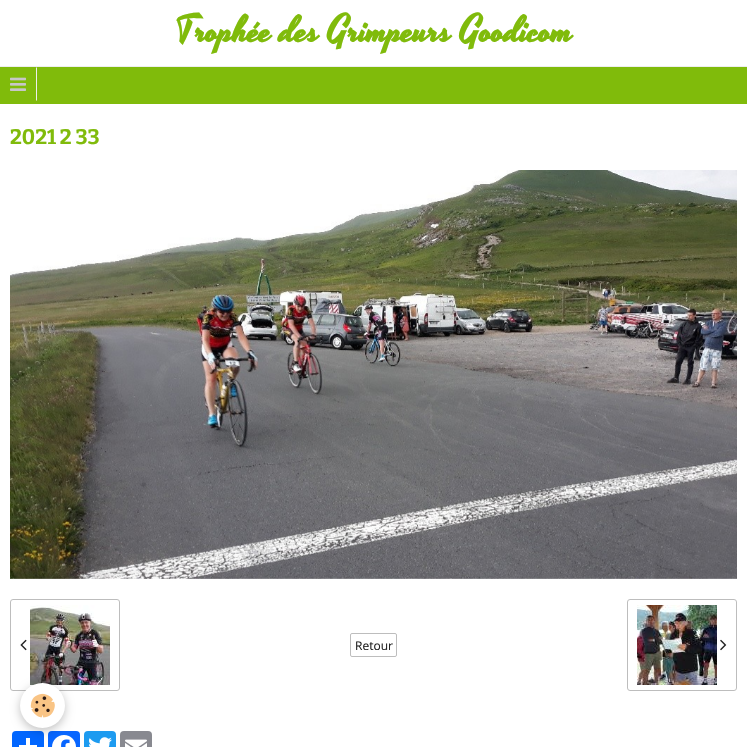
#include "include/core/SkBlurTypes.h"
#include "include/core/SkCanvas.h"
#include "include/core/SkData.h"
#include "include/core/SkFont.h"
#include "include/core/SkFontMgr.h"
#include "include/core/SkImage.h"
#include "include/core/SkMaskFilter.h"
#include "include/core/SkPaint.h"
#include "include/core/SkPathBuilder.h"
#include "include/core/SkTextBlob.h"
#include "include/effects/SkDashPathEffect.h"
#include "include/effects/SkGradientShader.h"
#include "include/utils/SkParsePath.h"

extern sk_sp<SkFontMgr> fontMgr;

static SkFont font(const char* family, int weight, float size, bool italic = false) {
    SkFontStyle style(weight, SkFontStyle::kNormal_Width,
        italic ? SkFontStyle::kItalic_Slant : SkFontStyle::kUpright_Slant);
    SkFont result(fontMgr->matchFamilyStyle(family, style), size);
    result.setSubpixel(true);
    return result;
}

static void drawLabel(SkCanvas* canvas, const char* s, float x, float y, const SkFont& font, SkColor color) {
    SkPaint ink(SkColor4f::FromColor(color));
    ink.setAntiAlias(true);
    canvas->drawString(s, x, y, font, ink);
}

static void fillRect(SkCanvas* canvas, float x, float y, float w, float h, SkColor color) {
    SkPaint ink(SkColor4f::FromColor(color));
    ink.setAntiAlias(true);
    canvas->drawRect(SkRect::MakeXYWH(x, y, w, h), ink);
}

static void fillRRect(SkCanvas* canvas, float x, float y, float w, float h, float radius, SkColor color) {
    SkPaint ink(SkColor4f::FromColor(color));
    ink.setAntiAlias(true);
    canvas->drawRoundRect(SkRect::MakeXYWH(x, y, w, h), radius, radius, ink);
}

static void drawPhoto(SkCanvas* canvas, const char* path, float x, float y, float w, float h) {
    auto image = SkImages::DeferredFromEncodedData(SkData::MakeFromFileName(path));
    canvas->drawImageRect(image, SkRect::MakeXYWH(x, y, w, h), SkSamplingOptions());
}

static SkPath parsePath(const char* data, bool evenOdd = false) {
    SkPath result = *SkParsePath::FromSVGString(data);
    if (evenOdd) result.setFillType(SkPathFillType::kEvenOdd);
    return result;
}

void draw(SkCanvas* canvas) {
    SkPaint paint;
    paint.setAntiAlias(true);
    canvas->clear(0xFFFFFFFF);
    fillRect(canvas, 0, 67, 747, 37, 0xFF80BB0B);
    SkFont font1 = font("Yesteryear", 700, 36.4f);
    drawLabel(canvas, "Trophée des Grimpeurs Goodicom", 175, 41, font1, 0xFF80BB0B);
    fillRect(canvas, 0, 66, 747, 1, 0xFFEEEEEE);
    paint.setColor(0xFFEEEEEE);
    canvas->drawPath(parsePath("M37 67V101L36 100V68Z"), paint);
    drawPhoto(canvas, "assets/img1.png", 10, 77, 16, 14);
    SkFont font2 = font("Bitter", 700, 21);
    drawLabel(canvas, "2021 2 33", 10, 144, font2, 0xFF80BB0B);
    drawPhoto(canvas, "assets/img2.png", 10, 170, 727, 409);
    drawPhoto(canvas, "assets/img3.png", 20, 639, 7, 12);
    drawPhoto(canvas, "assets/img4.png", 30, 605, 80, 80);
    paint.setStroke(true);
    paint.setStrokeWidth(1);
    paint.setColor(0xFFBDBDBD);
    canvas->drawRoundRect(SkRect::MakeXYWH(10.5f, 599.5f, 109, 91), 2.5f, 2.5f, paint);
    canvas->drawRoundRect(SkRect::MakeXYWH(350.5f, 633.5f, 46, 23), 1.5f, 1.5f, paint);
    SkFont font3 = font("Open Sans", 400, 12);
    drawLabel(canvas, "Retour", 355, 650, font3, 0xFF222222);
    drawPhoto(canvas, "assets/img5.png", 637, 605, 80, 80);
    drawPhoto(canvas, "assets/img6.png", 720, 639, 7, 12);
    canvas->drawRoundRect(SkRect::MakeXYWH(627.5f, 599.5f, 109, 91), 2.5f, 2.5f, paint);
    fillRRect(canvas, 12, 731, 32, 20, 4, 0xFF0166FF);
    fillRect(canvas, 26, 738, 4, 9, 0xFFFFFFFF);
    fillRect(canvas, 19, 745, 18, 2, 0xFFFFFFFF);
    fillRRect(canvas, 48, 731, 32, 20, 4, 0xFF0866FF);
    drawPhoto(canvas, "assets/img7.png", 52, 735, 24, 12);
    fillRRect(canvas, 84, 731, 32, 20, 4, 0xFF1D9BF0);
    drawPhoto(canvas, "assets/img8.png", 89, 737, 23, 10);
    fillRRect(canvas, 120, 731, 32, 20, 4, 0xFF888990);
    drawPhoto(canvas, "assets/img9.png", 125, 739, 22, 8);
    paint.setStroke(false);
    paint.setColor(0x3D000000);
    paint.setMaskFilter(SkMaskFilter::MakeBlur(kNormal_SkBlurStyle, 5));
    canvas->drawRoundRect(SkRect::MakeXYWH(20, 686, 45, 45), 22.5f, 22.5f, paint);
    paint.setMaskFilter(nullptr);
    paint.setColor(0xFFFFFFFF);
    canvas->drawCircle(42.5f, 705.5f, 22.5f, paint);
    drawPhoto(canvas, "assets/img10.png", 30, 693, 25, 25);
}
